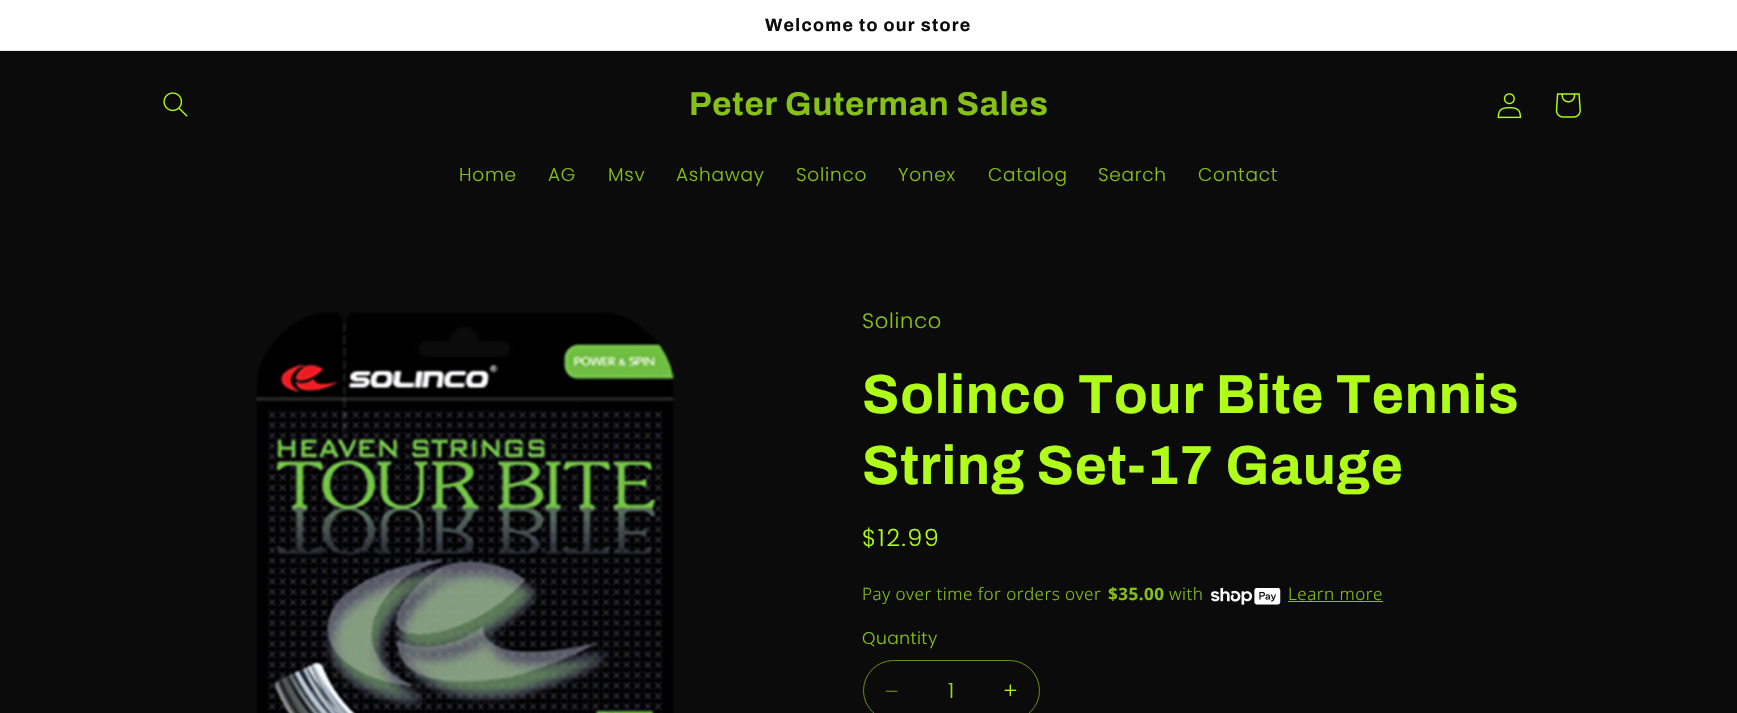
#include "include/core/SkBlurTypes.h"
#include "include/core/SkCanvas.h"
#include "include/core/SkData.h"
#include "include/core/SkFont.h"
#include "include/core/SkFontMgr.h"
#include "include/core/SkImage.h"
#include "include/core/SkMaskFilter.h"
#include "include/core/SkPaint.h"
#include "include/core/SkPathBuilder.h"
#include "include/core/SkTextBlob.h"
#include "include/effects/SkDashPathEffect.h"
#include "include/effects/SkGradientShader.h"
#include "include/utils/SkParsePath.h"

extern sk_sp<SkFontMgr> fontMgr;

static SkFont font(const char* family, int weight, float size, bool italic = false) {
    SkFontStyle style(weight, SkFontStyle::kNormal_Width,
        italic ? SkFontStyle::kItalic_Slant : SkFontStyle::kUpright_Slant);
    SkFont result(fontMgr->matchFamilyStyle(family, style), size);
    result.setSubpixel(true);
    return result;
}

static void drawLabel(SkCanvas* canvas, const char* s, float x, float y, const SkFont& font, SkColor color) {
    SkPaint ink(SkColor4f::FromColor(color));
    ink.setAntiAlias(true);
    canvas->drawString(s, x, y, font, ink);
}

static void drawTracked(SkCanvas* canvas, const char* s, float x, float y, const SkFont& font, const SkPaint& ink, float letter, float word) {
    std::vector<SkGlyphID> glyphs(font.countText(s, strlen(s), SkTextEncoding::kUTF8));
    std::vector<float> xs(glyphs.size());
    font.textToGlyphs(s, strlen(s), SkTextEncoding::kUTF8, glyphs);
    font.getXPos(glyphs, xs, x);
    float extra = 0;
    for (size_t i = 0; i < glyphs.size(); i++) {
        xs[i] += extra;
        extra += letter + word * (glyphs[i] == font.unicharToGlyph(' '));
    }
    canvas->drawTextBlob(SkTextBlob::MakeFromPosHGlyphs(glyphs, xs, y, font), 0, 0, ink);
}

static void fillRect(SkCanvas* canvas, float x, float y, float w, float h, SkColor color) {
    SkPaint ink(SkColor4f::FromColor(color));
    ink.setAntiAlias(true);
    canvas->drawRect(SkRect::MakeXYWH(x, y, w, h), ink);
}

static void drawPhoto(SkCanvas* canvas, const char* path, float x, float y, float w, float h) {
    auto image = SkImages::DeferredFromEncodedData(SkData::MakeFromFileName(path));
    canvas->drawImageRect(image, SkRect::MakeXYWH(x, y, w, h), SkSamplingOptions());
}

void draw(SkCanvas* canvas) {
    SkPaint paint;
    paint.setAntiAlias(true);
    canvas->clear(0xFF0B0B0B);
    fillRect(canvas, 0, 0, 1737, 50, 0xFFFFFFFF);
    fillRect(canvas, 0, 50, 1737, 1, 0xFFEBEBEB);
    SkFont font1 = font("Archivo", 700, 17.9f);
    paint.setColor(0xFF0B0B0B);
    drawTracked(canvas, "Welcome to our store", 765, 31, font1, paint, 1.3f, 0);
    drawPhoto(canvas, "assets/img1.png", 163, 92, 25, 25);
    SkFont font2 = font("Archivo", 700, 33);
    paint.setColor(0xFF86C115);
    drawTracked(canvas, "Peter Guterman Sales", 689, 115, font2, paint, 0.8f, 0);
    drawPhoto(canvas, "assets/img2.png", 1497, 93, 25, 26);
    drawPhoto(canvas, "assets/img3.png", 1555, 93, 26, 25);
    SkFont font3 = font("Poppins", 300, 18.5f);
    drawTracked(canvas, "Home", 459, 181, font3, paint, 0.75f, 0);
    drawTracked(canvas, "AG", 548, 181, font3, paint, 0.75f, 0);
    drawTracked(canvas, "Msv", 608, 181, font3, paint, 0.75f, 0);
    drawTracked(canvas, "Ashaway", 676, 181, font3, paint, 0.75f, 0);
    drawTracked(canvas, "Solinco", 796, 181, font3, paint, 0.75f, 0);
    drawTracked(canvas, "Yonex", 898, 181, font3, paint, 0.75f, 0);
    drawTracked(canvas, "Catalog", 988, 181, font3, paint, 0.75f, 0);
    drawTracked(canvas, "Search", 1098, 181, font3, paint, 0.75f, 0);
    drawTracked(canvas, "Contact", 1198, 181, font3, paint, 0.75f, 0);
    drawPhoto(canvas, "assets/img4.png", 256, 312, 419, 401);
    SkFont font4 = font("Poppins", 300, 21);
    drawTracked(canvas, "Solinco", 862, 328, font4, paint, 0.75f, 0);
    SkFont font5 = font("Archivo", 700, 55);
    paint.setColor(0xFFAFFD18);
    drawTracked(canvas, "Solinco Tour Bite Tennis", 862, 413, font5, paint, 0.8f, 0);
    drawTracked(canvas, "String Set-17 Gauge", 862, 484, font5, paint, 0.8f, 0);
    SkFont font6 = font("Poppins", 300, 23.5f);
    drawTracked(canvas, "$12.99", 862, 546, font6, paint, 1.75f, 0);
    SkFont font7 = font("Noto Sans", 300, 17);
    paint.setColor(0xFF86C115);
    drawTracked(canvas, "Pay over time for orders over", 862, 600, font7, paint, 0.5f, 0);
    SkFont font8 = font("Noto Sans", 700, 17);
    drawTracked(canvas, "$35.00", 1108, 600, font8, paint, 0.5f, 0);
    drawTracked(canvas, "with", 1169, 600, font7, paint, 0.5f, 0);
    drawPhoto(canvas, "assets/img5.png", 1211, 588, 70, 17);
    drawTracked(canvas, "Learn more", 1288, 600, font7, paint, 0.5f, 0);
    fillRect(canvas, 1288, 601, 95, 1, 0xFF86C115);
    SkFont font9 = font("Poppins", 300, 17);
    drawTracked(canvas, "Quantity", 862, 644, font9, paint, 0.5f, 0);
    drawPhoto(canvas, "assets/img6.png", 885, 690, 13, 2);
    drawPhoto(canvas, "assets/img7.png", 1004, 684, 13, 13);
    paint.setStroke(true);
    paint.setStrokeWidth(1);
    paint.setColor(0xFF659012);
    canvas->drawRoundRect(SkRect::MakeXYWH(863.5f, 660.5f, 176, 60), 30, 30, paint);
    drawLabel(canvas, "1", 948, 698, font4, 0xFF96D916);
}
